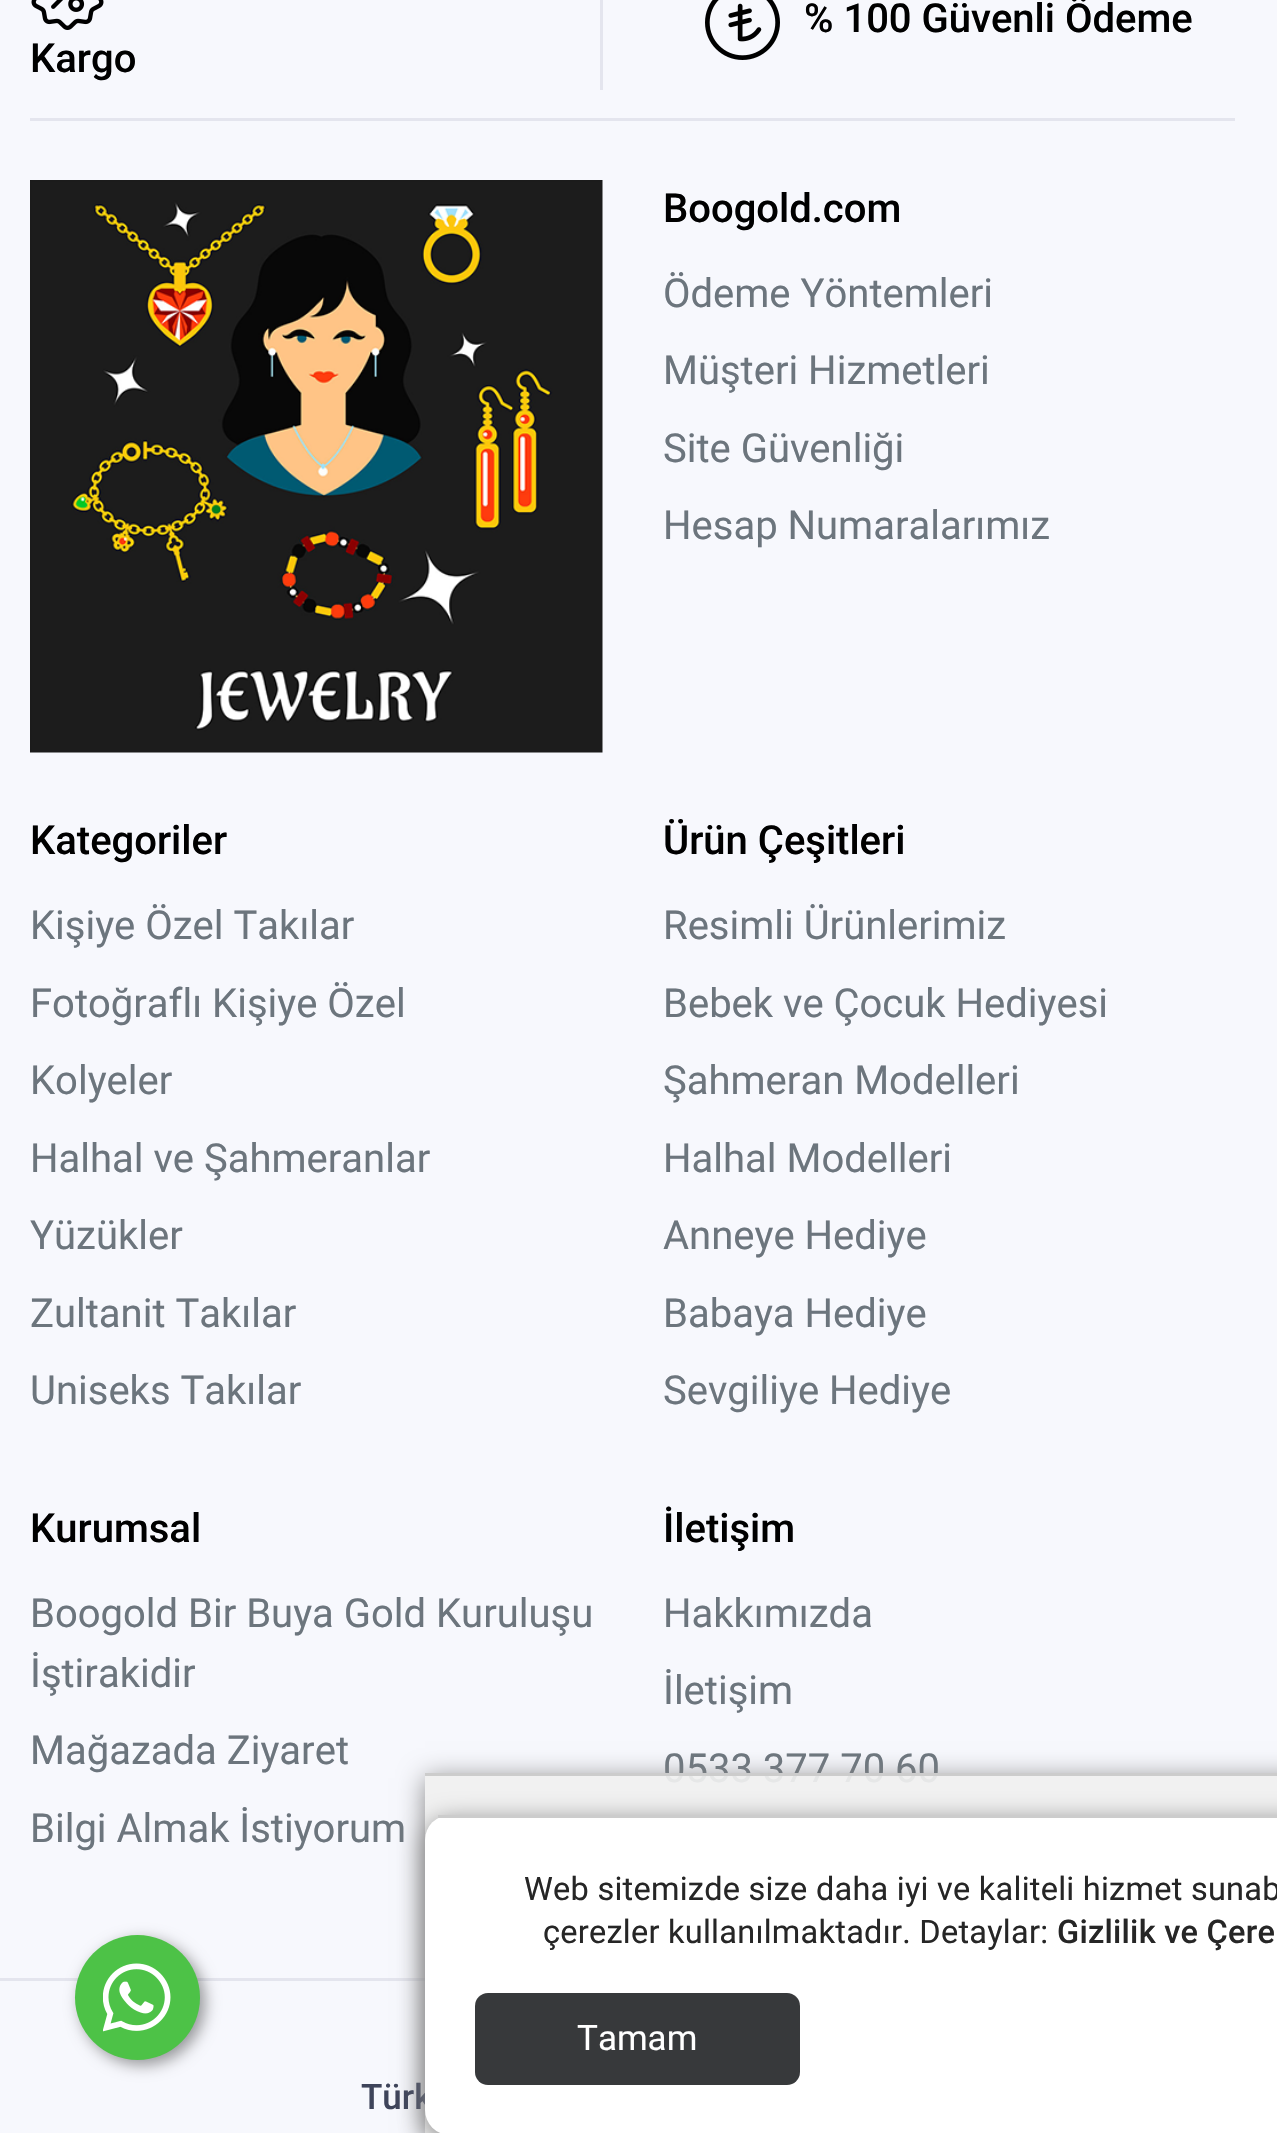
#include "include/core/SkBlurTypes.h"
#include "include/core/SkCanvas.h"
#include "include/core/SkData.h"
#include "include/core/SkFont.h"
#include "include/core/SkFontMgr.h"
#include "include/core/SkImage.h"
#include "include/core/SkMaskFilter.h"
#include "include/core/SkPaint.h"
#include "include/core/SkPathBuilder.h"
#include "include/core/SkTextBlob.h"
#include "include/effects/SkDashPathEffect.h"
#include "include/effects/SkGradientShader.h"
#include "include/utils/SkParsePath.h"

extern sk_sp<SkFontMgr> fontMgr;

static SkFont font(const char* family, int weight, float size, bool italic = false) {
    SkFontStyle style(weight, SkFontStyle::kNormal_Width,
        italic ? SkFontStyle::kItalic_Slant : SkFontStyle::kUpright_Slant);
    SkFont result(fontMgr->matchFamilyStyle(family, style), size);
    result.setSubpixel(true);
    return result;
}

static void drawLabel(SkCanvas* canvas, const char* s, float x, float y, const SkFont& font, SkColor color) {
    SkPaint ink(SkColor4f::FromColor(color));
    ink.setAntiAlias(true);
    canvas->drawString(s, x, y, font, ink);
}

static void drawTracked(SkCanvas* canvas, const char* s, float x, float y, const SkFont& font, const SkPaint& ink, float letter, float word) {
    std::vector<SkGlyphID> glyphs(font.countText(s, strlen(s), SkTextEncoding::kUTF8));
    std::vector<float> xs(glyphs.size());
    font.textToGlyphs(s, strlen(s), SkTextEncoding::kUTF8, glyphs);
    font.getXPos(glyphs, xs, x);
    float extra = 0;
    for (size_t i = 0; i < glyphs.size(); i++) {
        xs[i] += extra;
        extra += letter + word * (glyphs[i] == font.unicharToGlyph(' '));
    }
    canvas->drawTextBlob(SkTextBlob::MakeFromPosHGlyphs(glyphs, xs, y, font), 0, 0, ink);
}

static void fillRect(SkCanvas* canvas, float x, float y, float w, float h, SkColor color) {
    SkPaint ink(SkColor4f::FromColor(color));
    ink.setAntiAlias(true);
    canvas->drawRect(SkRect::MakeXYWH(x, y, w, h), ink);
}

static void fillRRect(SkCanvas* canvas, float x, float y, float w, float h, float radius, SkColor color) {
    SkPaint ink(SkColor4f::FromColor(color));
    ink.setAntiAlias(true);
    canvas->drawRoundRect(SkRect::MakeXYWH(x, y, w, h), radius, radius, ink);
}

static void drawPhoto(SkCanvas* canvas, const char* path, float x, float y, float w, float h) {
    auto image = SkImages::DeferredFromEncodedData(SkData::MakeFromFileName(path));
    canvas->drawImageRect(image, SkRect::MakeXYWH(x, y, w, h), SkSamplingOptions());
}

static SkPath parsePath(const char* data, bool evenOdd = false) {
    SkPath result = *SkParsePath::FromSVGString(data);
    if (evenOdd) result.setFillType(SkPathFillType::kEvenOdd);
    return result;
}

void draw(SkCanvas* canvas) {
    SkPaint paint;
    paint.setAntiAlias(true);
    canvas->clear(0xFFF7F8FD);
    fillRect(canvas, 30, 118, 1205, 3, 0xFFE4E5EE);
    drawPhoto(canvas, "assets/img1.png", 705, 0, 75, 60);
    SkFont font1 = font("Roboto", 500, 40);
    drawLabel(canvas, "% 100 Güvenli Ödeme", 804, 32, font1, 0xFF000000);
    fillRect(canvas, 600, 0, 3, 90, 0xFFE4E5EE);
    drawPhoto(canvas, "assets/img2.png", 31, 0, 73, 30);
    drawLabel(canvas, "Kargo", 30, 72, font1, 0xFF000000);
    drawPhoto(canvas, "assets/img3.png", 30, 180, 573, 573);
    drawLabel(canvas, "Boogold.com", 663, 222, font1, 0xFF000000);
    SkFont font2 = font("Roboto", 400, 40);
    drawLabel(canvas, "Ödeme Yöntemleri", 663, 307, font2, 0xFF6C757D);
    drawLabel(canvas, "Müşteri Hizmetleri", 663, 384, font2, 0xFF6C757D);
    drawLabel(canvas, "Site Güvenliği", 663, 462, font2, 0xFF6C757D);
    drawLabel(canvas, "Hesap Numaralarımız", 663, 539, font2, 0xFF6C757D);
    drawLabel(canvas, "Kategoriler", 30, 854, font1, 0xFF000000);
    drawLabel(canvas, "Kişiye Özel Takılar", 30, 939, font2, 0xFF6C757D);
    drawLabel(canvas, "Fotoğraflı Kişiye Özel", 30, 1017, font2, 0xFF6C757D);
    drawLabel(canvas, "Kolyeler", 30, 1094, font2, 0xFF6C757D);
    drawLabel(canvas, "Halhal ve Şahmeranlar", 30, 1172, font2, 0xFF6C757D);
    drawLabel(canvas, "Yüzükler", 30, 1249, font2, 0xFF6C757D);
    drawLabel(canvas, "Zultanit Takılar", 30, 1327, font2, 0xFF6C757D);
    drawLabel(canvas, "Uniseks Takılar", 30, 1404, font2, 0xFF6C757D);
    drawLabel(canvas, "Ürün Çeşitleri", 663, 854, font1, 0xFF000000);
    drawLabel(canvas, "Resimli Ürünlerimiz", 663, 939, font2, 0xFF6C757D);
    drawLabel(canvas, "Bebek ve Çocuk Hediyesi", 663, 1017, font2, 0xFF6C757D);
    drawLabel(canvas, "Şahmeran Modelleri", 663, 1094, font2, 0xFF6C757D);
    drawLabel(canvas, "Halhal Modelleri", 663, 1172, font2, 0xFF6C757D);
    drawLabel(canvas, "Anneye Hediye", 663, 1249, font2, 0xFF6C757D);
    drawLabel(canvas, "Babaya Hediye", 663, 1327, font2, 0xFF6C757D);
    drawLabel(canvas, "Sevgiliye Hediye", 663, 1404, font2, 0xFF6C757D);
    drawLabel(canvas, "Kurumsal", 30, 1542, font1, 0xFF000000);
    drawLabel(canvas, "Boogold Bir Buya Gold Kuruluşu", 30, 1627, font2, 0xFF6C757D);
    drawLabel(canvas, "İştirakidir", 30, 1687, font2, 0xFF6C757D);
    drawLabel(canvas, "Mağazada Ziyaret", 30, 1764, font2, 0xFF6C757D);
    drawLabel(canvas, "Bilgi Almak İstiyorum", 30, 1842, font2, 0xFF6C757D);
    drawLabel(canvas, "İletişim", 663, 1542, font1, 0xFF000000);
    drawLabel(canvas, "Hakkımızda", 663, 1627, font2, 0xFF6C757D);
    drawLabel(canvas, "İletişim", 663, 1704, font2, 0xFF6C757D);
    drawLabel(canvas, "0533 377 70 60", 663, 1782, font2, 0xFF6C757D);
    fillRect(canvas, 0, 1978, 425, 3, 0xFFE4E5EE);
    canvas->save();
    canvas->clipPath(parsePath("M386 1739H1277V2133H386ZM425 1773H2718V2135H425Z", true), true);
    paint.setColor(0xFF888888);
    paint.setMaskFilter(SkMaskFilter::MakeBlur(kNormal_SkBlurStyle, 12.5f));
    canvas->drawRect(SkRect::MakeXYWH(425, 1778, 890, 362), paint);
    paint.setMaskFilter(nullptr);
    canvas->restore();
    SkFont font3 = font("Roboto", 500, 35);
    drawLabel(canvas, "Türk", 361, 2109, font3, 0xFF3E445A);
    fillRect(canvas, 425, 1776, 852, 357, 0xEBF0F0F0);
    fillRect(canvas, 425, 1773, 852, 3, 0xFFCCCCCC);
    paint.setMaskFilter(SkMaskFilter::MakeBlur(kNormal_SkBlurStyle, 12.5f));
    canvas->drawRoundRect(SkRect::MakeXYWH(425, 1820, 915, 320), 25, 25, paint);
    paint.setMaskFilter(nullptr);
    fillRRect(canvas, 425, 1815, 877, 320, 25, 0xFFFFFFFF);
    fillRect(canvas, 438, 1815, 839, 3, 0xFFCCCCCC);
    SkFont font4 = font("Roboto", 400, 32.5f);
    paint.setColor(0xFF262626);
    drawTracked(canvas, "Web sitemizde size daha iyi ve kaliteli hizmet sunab", 524, 1900, font4, paint, 0.25f, 0);
    drawTracked(canvas, "çerezler kullanılmaktadır. Detaylar:", 543, 1943, font4, paint, 0.25f, 0);
    SkFont font5 = font("Roboto", 500, 32.5f);
    drawTracked(canvas, "Gizlilik ve Çere", 1057, 1943, font5, paint, 0.25f, 0);
    fillRRect(canvas, 475, 1993, 325, 92, 13, 0xFF37393B);
    SkFont font6 = font("Roboto", 400, 35);
    drawLabel(canvas, "Tamam", 577, 2050, font6, 0xFFFFFFFF);
    paint.setColor(0x66000000);
    paint.setMaskFilter(SkMaskFilter::MakeBlur(kNormal_SkBlurStyle, 7.5f));
    canvas->drawRoundRect(SkRect::MakeXYWH(80, 1940, 125, 125), 62.5f, 62.5f, paint);
    paint.setMaskFilter(nullptr);
    paint.setColor(0xFF4DC247);
    canvas->drawCircle(137.5f, 1997.5f, 62.5f, paint);
    drawPhoto(canvas, "assets/img4.png", 103, 1963, 68, 69);
}
